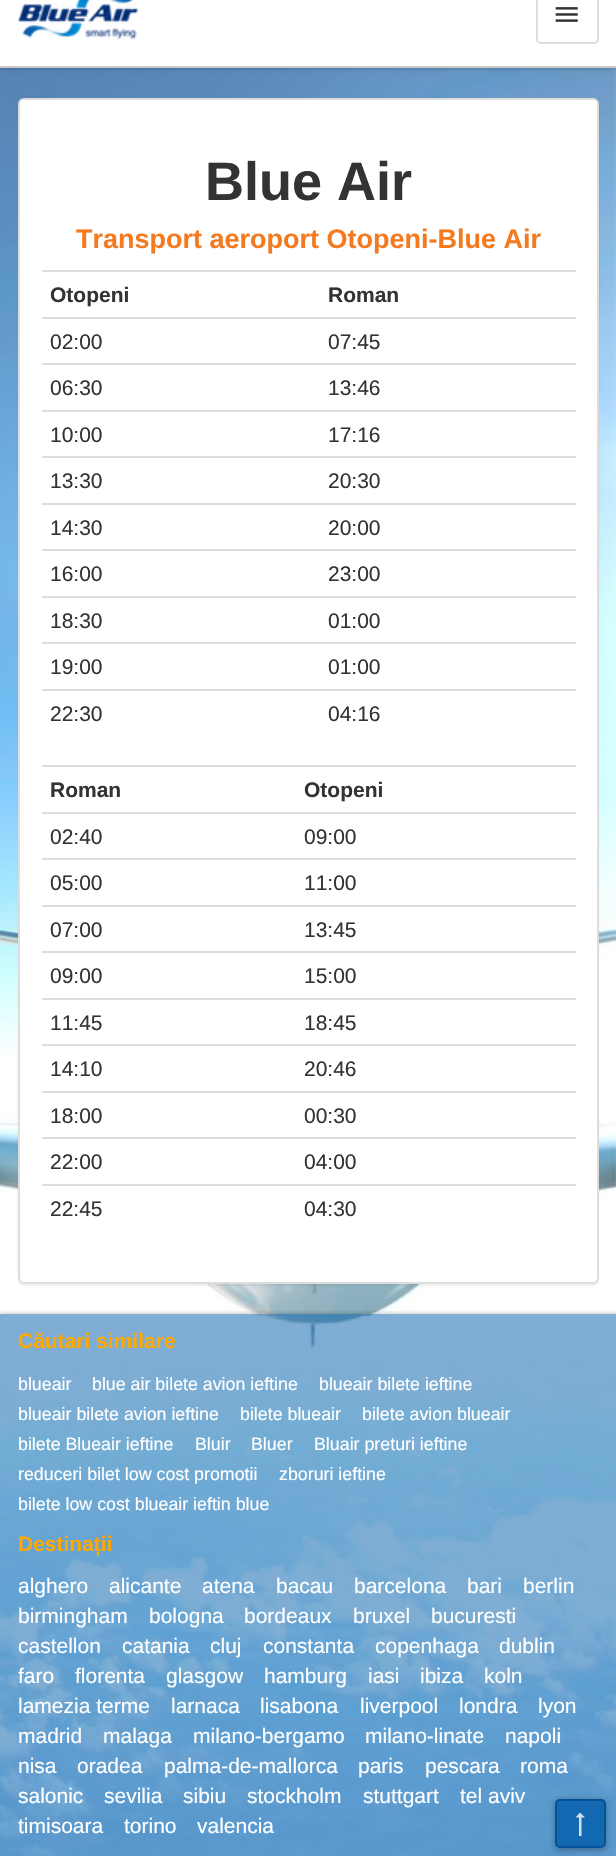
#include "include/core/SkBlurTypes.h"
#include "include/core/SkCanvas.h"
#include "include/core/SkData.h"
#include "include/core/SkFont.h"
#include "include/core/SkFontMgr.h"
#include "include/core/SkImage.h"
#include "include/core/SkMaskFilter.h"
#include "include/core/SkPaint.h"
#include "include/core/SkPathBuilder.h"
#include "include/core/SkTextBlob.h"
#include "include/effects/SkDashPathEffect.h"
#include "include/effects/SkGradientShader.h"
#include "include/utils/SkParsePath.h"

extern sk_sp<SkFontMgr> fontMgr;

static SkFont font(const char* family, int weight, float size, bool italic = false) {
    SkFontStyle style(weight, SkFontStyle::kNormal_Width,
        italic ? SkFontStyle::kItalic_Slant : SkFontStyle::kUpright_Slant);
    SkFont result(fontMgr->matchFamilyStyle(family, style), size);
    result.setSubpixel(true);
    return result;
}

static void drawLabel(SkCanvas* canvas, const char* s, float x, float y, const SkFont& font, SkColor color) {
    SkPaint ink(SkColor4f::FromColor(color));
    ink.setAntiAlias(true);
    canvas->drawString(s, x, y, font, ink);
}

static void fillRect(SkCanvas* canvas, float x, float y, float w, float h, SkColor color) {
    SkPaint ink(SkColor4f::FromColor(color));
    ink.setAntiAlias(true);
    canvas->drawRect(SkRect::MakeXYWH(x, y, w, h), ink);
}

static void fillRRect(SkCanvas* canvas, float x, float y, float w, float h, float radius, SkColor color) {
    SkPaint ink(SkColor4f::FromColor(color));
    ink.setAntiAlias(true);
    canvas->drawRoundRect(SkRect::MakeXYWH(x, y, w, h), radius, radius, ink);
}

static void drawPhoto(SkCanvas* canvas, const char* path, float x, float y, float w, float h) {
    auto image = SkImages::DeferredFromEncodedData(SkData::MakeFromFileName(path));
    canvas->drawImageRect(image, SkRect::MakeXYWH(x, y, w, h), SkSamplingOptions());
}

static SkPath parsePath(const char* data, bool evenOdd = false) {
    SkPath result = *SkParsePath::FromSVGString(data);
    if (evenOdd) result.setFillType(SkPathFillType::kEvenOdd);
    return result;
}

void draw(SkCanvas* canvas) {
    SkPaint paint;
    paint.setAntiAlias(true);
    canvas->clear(0xFFFFFFFF);
    drawPhoto(canvas, "assets/img1.png", 0, 68, 616, 1788);
    paint.setColor(0x33000000);
    paint.setMaskFilter(SkMaskFilter::MakeBlur(kNormal_SkBlurStyle, 2));
    canvas->drawRect(SkRect::MakeXYWH(0, -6, 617, 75), paint);
    paint.setMaskFilter(nullptr);
    fillRect(canvas, 0, 0, 616, 66, 0xFFFFFFFF);
    fillRect(canvas, 0, 66, 616, 2, 0xFFCACACA);
    drawPhoto(canvas, "assets/img2.png", 18, 0, 120, 40);
    paint.setStroke(true);
    paint.setStrokeWidth(2);
    paint.setColor(0xFFDDDDDD);
    canvas->drawRoundRect(SkRect::MakeXYWH(537, -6, 61, 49), 4, 4, paint);
    drawPhoto(canvas, "assets/img3.png", 555, 7, 23, 15);
    paint.setStroke(false);
    paint.setColor(0x0D000000);
    paint.setMaskFilter(SkMaskFilter::MakeBlur(kNormal_SkBlurStyle, 1));
    canvas->drawRoundRect(SkRect::MakeXYWH(18, 99, 581, 1187), 6, 6, paint);
    paint.setMaskFilter(nullptr);
    paint.setColor(0xFFFFFFFF);
    canvas->drawRoundRect(SkRect::MakeXYWH(19, 99, 579, 1184), 5, 5, paint);
    paint.setStroke(true);
    paint.setColor(0xFFDDDDDD);
    canvas->drawRoundRect(SkRect::MakeXYWH(19, 99, 579, 1184), 5, 5, paint);
    SkFont font1 = font("Liberation Sans", 700, 54);
    drawLabel(canvas, "Blue Air", 205, 200, font1, 0xFF333333);
    SkFont font2 = font("Liberation Sans", 700, 27);
    drawLabel(canvas, "Transport aeroport Otopeni-Blue Air", 76, 248, font2, 0xFFF47A20);
    SkFont font3 = font("Liberation Sans", 700, 21);
    drawLabel(canvas, "Otopeni", 50, 302, font3, 0xFF333333);
    fillRect(canvas, 42, 270, 534, 2, 0xFFDDDDDD);
    drawLabel(canvas, "Roman", 328, 302, font3, 0xFF333333);
    SkFont font4 = font("Liberation Sans", 400, 21);
    drawLabel(canvas, "02:00", 50, 349, font4, 0xFF333333);
    fillRect(canvas, 42, 317, 534, 2, 0xFFDDDDDD);
    drawLabel(canvas, "07:45", 328, 349, font4, 0xFF333333);
    drawLabel(canvas, "06:30", 50, 395, font4, 0xFF333333);
    fillRect(canvas, 42, 363, 534, 2, 0xFFDDDDDD);
    drawLabel(canvas, "13:46", 328, 395, font4, 0xFF333333);
    drawLabel(canvas, "10:00", 50, 442, font4, 0xFF333333);
    fillRect(canvas, 42, 410, 534, 2, 0xFFDDDDDD);
    drawLabel(canvas, "17:16", 328, 442, font4, 0xFF333333);
    drawLabel(canvas, "13:30", 50, 488, font4, 0xFF333333);
    fillRect(canvas, 42, 456, 534, 2, 0xFFDDDDDD);
    drawLabel(canvas, "20:30", 328, 488, font4, 0xFF333333);
    drawLabel(canvas, "14:30", 50, 535, font4, 0xFF333333);
    fillRect(canvas, 42, 503, 534, 2, 0xFFDDDDDD);
    drawLabel(canvas, "20:00", 328, 535, font4, 0xFF333333);
    drawLabel(canvas, "16:00", 50, 581, font4, 0xFF333333);
    fillRect(canvas, 42, 549, 534, 2, 0xFFDDDDDD);
    drawLabel(canvas, "23:00", 328, 581, font4, 0xFF333333);
    drawLabel(canvas, "18:30", 50, 628, font4, 0xFF333333);
    fillRect(canvas, 42, 596, 534, 2, 0xFFDDDDDD);
    drawLabel(canvas, "01:00", 328, 628, font4, 0xFF333333);
    drawLabel(canvas, "19:00", 50, 674, font4, 0xFF333333);
    fillRect(canvas, 42, 642, 534, 2, 0xFFDDDDDD);
    drawLabel(canvas, "01:00", 328, 674, font4, 0xFF333333);
    drawLabel(canvas, "22:30", 50, 721, font4, 0xFF333333);
    fillRect(canvas, 42, 689, 534, 2, 0xFFDDDDDD);
    drawLabel(canvas, "04:16", 328, 721, font4, 0xFF333333);
    drawLabel(canvas, "Roman", 50, 797, font3, 0xFF333333);
    fillRect(canvas, 42, 765, 534, 2, 0xFFDDDDDD);
    drawLabel(canvas, "Otopeni", 304, 797, font3, 0xFF333333);
    drawLabel(canvas, "02:40", 50, 844, font4, 0xFF333333);
    fillRect(canvas, 42, 812, 534, 2, 0xFFDDDDDD);
    drawLabel(canvas, "09:00", 304, 844, font4, 0xFF333333);
    drawLabel(canvas, "05:00", 50, 890, font4, 0xFF333333);
    fillRect(canvas, 42, 858, 534, 2, 0xFFDDDDDD);
    drawLabel(canvas, "11:00", 304, 890, font4, 0xFF333333);
    drawLabel(canvas, "07:00", 50, 937, font4, 0xFF333333);
    fillRect(canvas, 42, 905, 534, 2, 0xFFDDDDDD);
    drawLabel(canvas, "13:45", 304, 937, font4, 0xFF333333);
    drawLabel(canvas, "09:00", 50, 983, font4, 0xFF333333);
    fillRect(canvas, 42, 951, 534, 2, 0xFFDDDDDD);
    drawLabel(canvas, "15:00", 304, 983, font4, 0xFF333333);
    drawLabel(canvas, "11:45", 50, 1030, font4, 0xFF333333);
    fillRect(canvas, 42, 998, 534, 2, 0xFFDDDDDD);
    drawLabel(canvas, "18:45", 304, 1030, font4, 0xFF333333);
    drawLabel(canvas, "14:10", 50, 1076, font4, 0xFF333333);
    fillRect(canvas, 42, 1044, 534, 2, 0xFFDDDDDD);
    drawLabel(canvas, "20:46", 304, 1076, font4, 0xFF333333);
    drawLabel(canvas, "18:00", 50, 1123, font4, 0xFF333333);
    fillRect(canvas, 42, 1091, 534, 2, 0xFFDDDDDD);
    drawLabel(canvas, "00:30", 304, 1123, font4, 0xFF333333);
    drawLabel(canvas, "22:00", 50, 1169, font4, 0xFF333333);
    fillRect(canvas, 42, 1137, 534, 2, 0xFFDDDDDD);
    drawLabel(canvas, "04:00", 304, 1169, font4, 0xFF333333);
    drawLabel(canvas, "22:45", 50, 1216, font4, 0xFF333333);
    fillRect(canvas, 42, 1184, 534, 2, 0xFFDDDDDD);
    drawLabel(canvas, "04:30", 304, 1216, font4, 0xFF333333);
    canvas->save();
    canvas->clipRect(SkRect::MakeXYWH(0, 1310, 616, 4));
    paint.setStroke(false);
    paint.setColor(0x33000000);
    paint.setMaskFilter(SkMaskFilter::MakeBlur(kNormal_SkBlurStyle, 2));
    canvas->drawRect(SkRect::MakeXYWH(0, 1313, 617, 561), paint);
    paint.setMaskFilter(nullptr);
    canvas->restore();
    fillRect(canvas, 0, 1314, 616, 542, 0x80005BAA);
    drawLabel(canvas, "Căutari similare", 18, 1348, font3, 0xFFFFA900);
    SkFont font5 = font("Liberation Sans", 400, 17.8f);
    drawLabel(canvas, "blueair", 18, 1390, font5, 0xFFFFFFFF);
    drawLabel(canvas, "blue air bilete avion ieftine", 92, 1390, font5, 0xFFFFFFFF);
    drawLabel(canvas, "blueair bilete ieftine", 319, 1390, font5, 0xFFFFFFFF);
    drawLabel(canvas, "blueair bilete avion ieftine", 18, 1420, font5, 0xFFFFFFFF);
    drawLabel(canvas, "bilete blueair", 240, 1420, font5, 0xFFFFFFFF);
    drawLabel(canvas, "bilete avion blueair", 362, 1420, font5, 0xFFFFFFFF);
    drawLabel(canvas, "bilete Blueair ieftine", 18, 1450, font5, 0xFFFFFFFF);
    drawLabel(canvas, "Bluir", 195, 1450, font5, 0xFFFFFFFF);
    drawLabel(canvas, "Bluer", 251, 1450, font5, 0xFFFFFFFF);
    drawLabel(canvas, "Bluair preturi ieftine", 314, 1450, font5, 0xFFFFFFFF);
    drawLabel(canvas, "reduceri bilet low cost promotii", 18, 1480, font5, 0xFFFFFFFF);
    drawLabel(canvas, "zboruri ieftine", 279, 1480, font5, 0xFFFFFFFF);
    drawLabel(canvas, "bilete low cost blueair ieftin blue", 18, 1510, font5, 0xFFFFFFFF);
    drawLabel(canvas, "Destinații", 18, 1551, font3, 0xFFFFA900);
    drawLabel(canvas, "alghero", 18, 1593, font4, 0xFFFFFFFF);
    drawLabel(canvas, "alicante", 109, 1593, font4, 0xFFFFFFFF);
    drawLabel(canvas, "atena", 202, 1593, font4, 0xFFFFFFFF);
    drawLabel(canvas, "bacau", 276, 1593, font4, 0xFFFFFFFF);
    drawLabel(canvas, "barcelona", 354, 1593, font4, 0xFFFFFFFF);
    drawLabel(canvas, "bari", 467, 1593, font4, 0xFFFFFFFF);
    drawLabel(canvas, "berlin", 523, 1593, font4, 0xFFFFFFFF);
    drawLabel(canvas, "birmingham", 18, 1623, font4, 0xFFFFFFFF);
    drawLabel(canvas, "bologna", 149, 1623, font4, 0xFFFFFFFF);
    drawLabel(canvas, "bordeaux", 244, 1623, font4, 0xFFFFFFFF);
    drawLabel(canvas, "bruxel", 353, 1623, font4, 0xFFFFFFFF);
    drawLabel(canvas, "bucuresti", 431, 1623, font4, 0xFFFFFFFF);
    drawLabel(canvas, "castellon", 18, 1653, font4, 0xFFFFFFFF);
    drawLabel(canvas, "catania", 122, 1653, font4, 0xFFFFFFFF);
    drawLabel(canvas, "cluj", 210, 1653, font4, 0xFFFFFFFF);
    drawLabel(canvas, "constanta", 263, 1653, font4, 0xFFFFFFFF);
    drawLabel(canvas, "copenhaga", 375, 1653, font4, 0xFFFFFFFF);
    drawLabel(canvas, "dublin", 499, 1653, font4, 0xFFFFFFFF);
    drawLabel(canvas, "faro", 18, 1683, font4, 0xFFFFFFFF);
    drawLabel(canvas, "florenta", 75, 1683, font4, 0xFFFFFFFF);
    drawLabel(canvas, "glasgow", 166, 1683, font4, 0xFFFFFFFF);
    drawLabel(canvas, "hamburg", 264, 1683, font4, 0xFFFFFFFF);
    drawLabel(canvas, "iasi", 368, 1683, font4, 0xFFFFFFFF);
    drawLabel(canvas, "ibiza", 420, 1683, font4, 0xFFFFFFFF);
    drawLabel(canvas, "koln", 484, 1683, font4, 0xFFFFFFFF);
    drawLabel(canvas, "lamezia terme", 18, 1713, font4, 0xFFFFFFFF);
    drawLabel(canvas, "larnaca", 171, 1713, font4, 0xFFFFFFFF);
    drawLabel(canvas, "lisabona", 260, 1713, font4, 0xFFFFFFFF);
    drawLabel(canvas, "liverpool", 360, 1713, font4, 0xFFFFFFFF);
    drawLabel(canvas, "londra", 459, 1713, font4, 0xFFFFFFFF);
    drawLabel(canvas, "lyon", 538, 1713, font4, 0xFFFFFFFF);
    drawLabel(canvas, "madrid", 18, 1743, font4, 0xFFFFFFFF);
    drawLabel(canvas, "malaga", 103, 1743, font4, 0xFFFFFFFF);
    drawLabel(canvas, "milano-bergamo", 193, 1743, font4, 0xFFFFFFFF);
    drawLabel(canvas, "milano-linate", 365, 1743, font4, 0xFFFFFFFF);
    drawLabel(canvas, "napoli", 505, 1743, font4, 0xFFFFFFFF);
    drawLabel(canvas, "nisa", 18, 1773, font4, 0xFFFFFFFF);
    drawLabel(canvas, "oradea", 77, 1773, font4, 0xFFFFFFFF);
    drawLabel(canvas, "palma-de-mallorca", 164, 1773, font4, 0xFFFFFFFF);
    drawLabel(canvas, "paris", 358, 1773, font4, 0xFFFFFFFF);
    drawLabel(canvas, "pescara", 425, 1773, font4, 0xFFFFFFFF);
    drawLabel(canvas, "roma", 520, 1773, font4, 0xFFFFFFFF);
    drawLabel(canvas, "salonic", 18, 1803, font4, 0xFFFFFFFF);
    drawLabel(canvas, "sevilia", 104, 1803, font4, 0xFFFFFFFF);
    drawLabel(canvas, "sibiu", 183, 1803, font4, 0xFFFFFFFF);
    drawLabel(canvas, "stockholm", 247, 1803, font4, 0xFFFFFFFF);
    drawLabel(canvas, "stuttgart", 363, 1803, font4, 0xFFFFFFFF);
    drawLabel(canvas, "tel aviv", 460, 1803, font4, 0xFFFFFFFF);
    drawLabel(canvas, "timisoara", 18, 1833, font4, 0xFFFFFFFF);
    drawLabel(canvas, "torino", 124, 1833, font4, 0xFFFFFFFF);
    drawLabel(canvas, "valencia", 197, 1833, font4, 0xFFFFFFFF);
    canvas->save();
    canvas->clipPath(parsePath("M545 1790H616V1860H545ZM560 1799H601C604 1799 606 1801 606 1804V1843C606 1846 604 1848 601 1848H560C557 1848 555 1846 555 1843V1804C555 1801 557 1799 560 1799Z", true), true);
    paint.setColor(0x52000000);
    paint.setMaskFilter(SkMaskFilter::MakeBlur(kNormal_SkBlurStyle, 3));
    canvas->drawRoundRect(SkRect::MakeXYWH(555, 1800, 51, 50), 5, 5, paint);
    paint.setMaskFilter(nullptr);
    canvas->restore();
    fillRRect(canvas, 555, 1799, 51, 49, 5, 0xCC005BAA);
    paint.setStroke(true);
    paint.setColor(0xCC004D91);
    canvas->drawRoundRect(SkRect::MakeXYWH(556, 1800, 49, 47), 4, 4, paint);
    paint.setStroke(false);
    paint.setColor(0xFFD0E1EF);
    canvas->drawPath(parsePath("M580 1812.5L575.5 1817.5H579V1836H581.5V1817.5H585Z"), paint);
}
